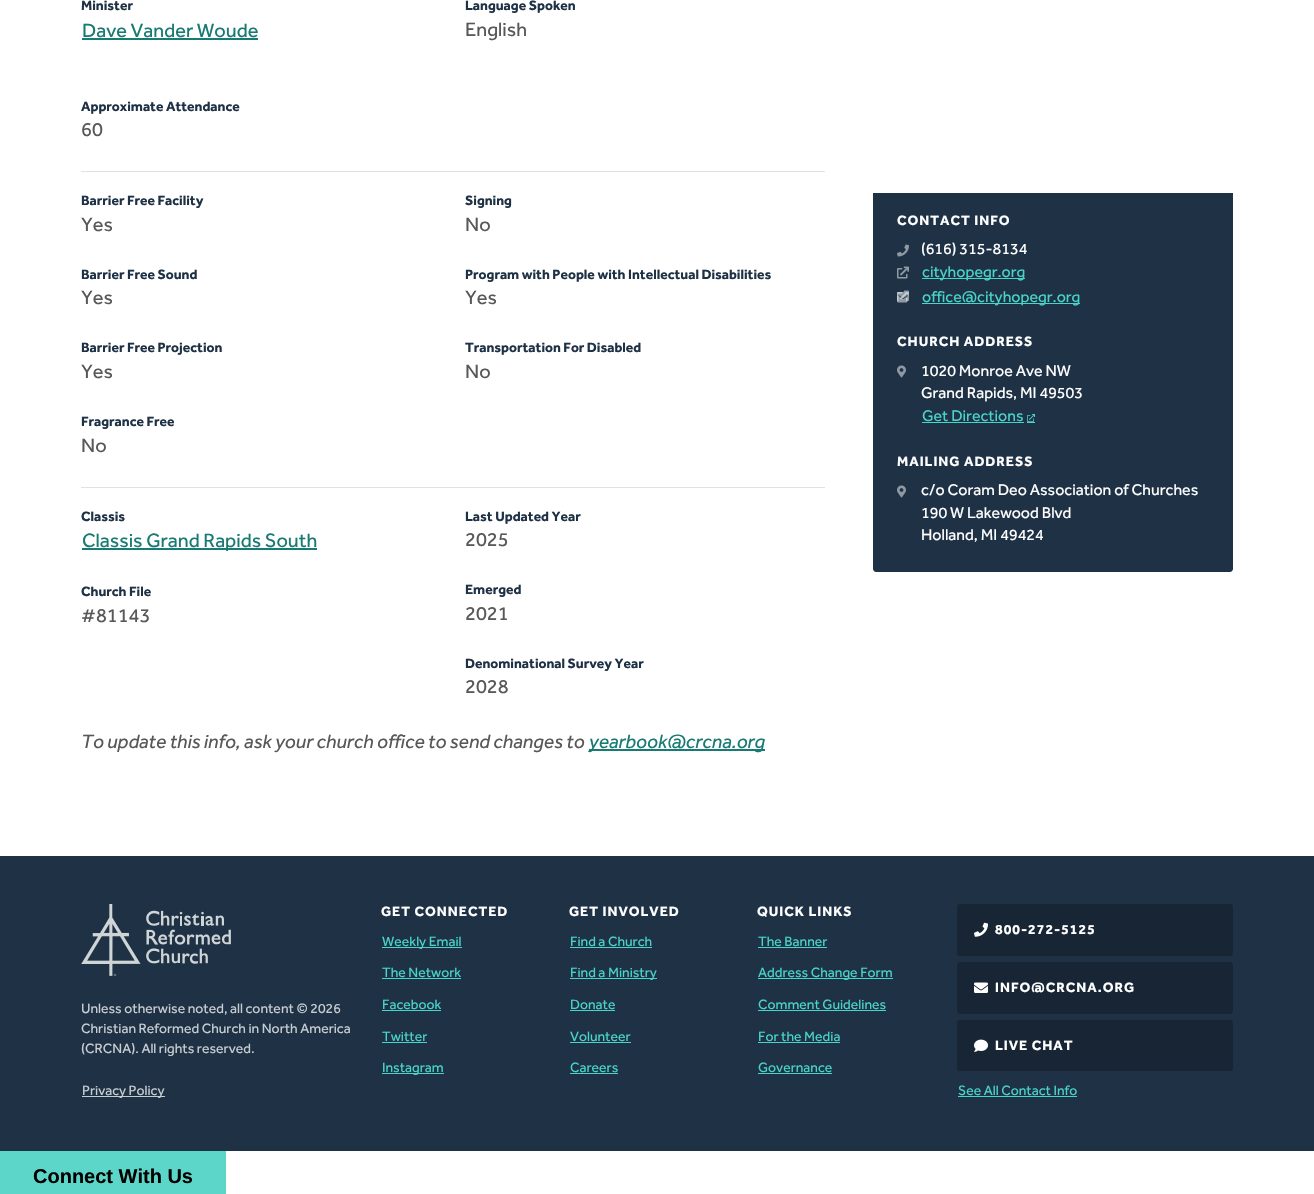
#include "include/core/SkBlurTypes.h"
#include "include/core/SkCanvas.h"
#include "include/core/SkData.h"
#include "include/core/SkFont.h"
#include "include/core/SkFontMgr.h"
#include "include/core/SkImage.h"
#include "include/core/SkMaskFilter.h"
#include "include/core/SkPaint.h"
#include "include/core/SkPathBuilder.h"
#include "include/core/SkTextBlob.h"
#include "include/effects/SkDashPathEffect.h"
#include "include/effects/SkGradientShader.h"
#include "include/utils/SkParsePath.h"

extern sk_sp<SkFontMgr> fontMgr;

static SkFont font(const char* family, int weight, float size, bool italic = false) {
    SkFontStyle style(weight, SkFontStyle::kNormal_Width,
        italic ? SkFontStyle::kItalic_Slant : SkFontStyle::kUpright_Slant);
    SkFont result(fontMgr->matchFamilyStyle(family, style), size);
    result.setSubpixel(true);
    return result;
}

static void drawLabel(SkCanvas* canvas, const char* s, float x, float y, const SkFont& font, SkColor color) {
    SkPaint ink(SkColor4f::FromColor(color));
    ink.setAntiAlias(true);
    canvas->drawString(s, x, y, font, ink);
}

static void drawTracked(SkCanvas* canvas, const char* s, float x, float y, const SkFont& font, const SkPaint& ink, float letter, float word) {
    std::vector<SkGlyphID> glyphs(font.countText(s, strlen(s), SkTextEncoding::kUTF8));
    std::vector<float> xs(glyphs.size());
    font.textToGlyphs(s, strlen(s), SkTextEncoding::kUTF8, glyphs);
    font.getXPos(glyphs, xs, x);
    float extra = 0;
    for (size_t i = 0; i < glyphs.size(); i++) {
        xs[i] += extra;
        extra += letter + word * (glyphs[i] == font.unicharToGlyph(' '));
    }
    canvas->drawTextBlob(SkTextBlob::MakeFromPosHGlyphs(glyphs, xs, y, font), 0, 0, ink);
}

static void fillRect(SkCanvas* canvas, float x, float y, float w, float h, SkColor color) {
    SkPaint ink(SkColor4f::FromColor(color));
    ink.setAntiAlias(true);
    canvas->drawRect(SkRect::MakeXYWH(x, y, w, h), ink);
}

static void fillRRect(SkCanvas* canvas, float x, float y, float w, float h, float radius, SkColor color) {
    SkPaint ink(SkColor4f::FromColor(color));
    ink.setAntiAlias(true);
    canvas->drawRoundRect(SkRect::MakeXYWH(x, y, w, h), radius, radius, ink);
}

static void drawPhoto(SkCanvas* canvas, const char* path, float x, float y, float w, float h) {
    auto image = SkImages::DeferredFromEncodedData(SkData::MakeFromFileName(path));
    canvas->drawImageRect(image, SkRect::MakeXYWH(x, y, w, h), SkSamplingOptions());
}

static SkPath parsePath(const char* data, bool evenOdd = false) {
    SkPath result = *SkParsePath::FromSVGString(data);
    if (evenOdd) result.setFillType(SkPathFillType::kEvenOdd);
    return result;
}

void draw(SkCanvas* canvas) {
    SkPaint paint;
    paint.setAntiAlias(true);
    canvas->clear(0xFFFFFFFF);
    SkFont font1 = font("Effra", 700, 14);
    drawLabel(canvas, "Minister", 81, 10, font1, 0xFF1E3145);
    SkFont font2 = font("Effra", 400, 20);
    drawLabel(canvas, "Dave Vander Woude", 82, 37, font2, 0xFF187B73);
    fillRect(canvas, 82, 38, 176, 2, 0xFF187B73);
    drawLabel(canvas, "Language Spoken", 465, 10, font1, 0xFF1E3145);
    drawLabel(canvas, "English", 465, 36, font2, 0xFF585858);
    drawLabel(canvas, "Approximate Attendance", 81, 111, font1, 0xFF1E3145);
    drawLabel(canvas, "60", 81, 136, font2, 0xFF585858);
    fillRect(canvas, 81, 171, 744, 1, 0xFFDEE2E3);
    drawLabel(canvas, "Barrier Free Facility", 81, 205, font1, 0xFF1E3145);
    drawLabel(canvas, "Yes", 81, 231, font2, 0xFF585858);
    drawLabel(canvas, "Signing", 465, 205, font1, 0xFF1E3145);
    drawLabel(canvas, "No", 465, 231, font2, 0xFF585858);
    drawLabel(canvas, "Barrier Free Sound", 81, 279, font1, 0xFF1E3145);
    drawLabel(canvas, "Yes", 81, 304, font2, 0xFF585858);
    drawLabel(canvas, "Program with People with Intellectual Disabilities", 465, 279, font1, 0xFF1E3145);
    drawLabel(canvas, "Yes", 465, 304, font2, 0xFF585858);
    drawLabel(canvas, "Barrier Free Projection", 81, 352, font1, 0xFF1E3145);
    drawLabel(canvas, "Yes", 81, 378, font2, 0xFF585858);
    drawLabel(canvas, "Transportation For Disabled", 465, 352, font1, 0xFF1E3145);
    drawLabel(canvas, "No", 465, 378, font2, 0xFF585858);
    drawLabel(canvas, "Fragrance Free", 81, 426, font1, 0xFF1E3145);
    drawLabel(canvas, "No", 81, 452, font2, 0xFF585858);
    fillRect(canvas, 81, 487, 744, 1, 0xFFDEE2E3);
    drawLabel(canvas, "Classis", 81, 521, font1, 0xFF1E3145);
    fillRect(canvas, 82, 548, 235, 2, 0xFF187B73);
    drawLabel(canvas, "Classis Grand Rapids South", 82, 547, font2, 0xFF187B73);
    drawLabel(canvas, "Last Updated Year", 465, 521, font1, 0xFF1E3145);
    drawLabel(canvas, "2025", 465, 546, font2, 0xFF585858);
    drawLabel(canvas, "Church File", 81, 596, font1, 0xFF1E3145);
    drawLabel(canvas, "#81143", 81, 622, font2, 0xFF585858);
    drawLabel(canvas, "Emerged", 465, 594, font1, 0xFF1E3145);
    drawLabel(canvas, "2021", 465, 620, font2, 0xFF585858);
    drawLabel(canvas, "Denominational Survey Year", 465, 668, font1, 0xFF1E3145);
    drawLabel(canvas, "2028", 465, 693, font2, 0xFF585858);
    SkFont font3 = font("Effra", 400, 20, true);
    drawLabel(canvas, "To update this info, ask your church office to send changes to", 81, 748, font3, 0xFF585858);
    fillRect(canvas, 589, 749, 176, 2, 0xFF187B73);
    drawLabel(canvas, "yearbook@crcna.org", 589, 748, font3, 0xFF187B73);
    paint.setColor(0xFF1E3145);
    canvas->drawPath(parsePath("M873 193H1233V569C1233 570.5 1231.5 572 1230 572H876C874.5 572 873 570.5 873 569Z"), paint);
    paint.setColor(0xFFFFFFFF);
    drawTracked(canvas, "CONTACT INFO", 897, 225, font1, paint, 1, 0);
    drawPhoto(canvas, "assets/img1.png", 897, 244, 12, 13);
    SkFont font4 = font("Effra", 400, 16);
    drawLabel(canvas, "(616) 315-8134", 921, 254, font4, 0xFFFFFFFF);
    drawPhoto(canvas, "assets/img2.png", 897, 266, 12, 13);
    fillRect(canvas, 922, 278, 103, 1, 0xFF49D4C9);
    drawLabel(canvas, "cityhopegr.org", 922, 277, font4, 0xFF49D4C9);
    drawPhoto(canvas, "assets/img2.png", 897, 290, 12, 13);
    drawPhoto(canvas, "assets/img3.png", 897, 292, 12, 9);
    fillRect(canvas, 922, 303, 158, 1, 0xFF49D4C9);
    drawLabel(canvas, "office@cityhopegr.org", 922, 302, font4, 0xFF49D4C9);
    drawTracked(canvas, "CHURCH ADDRESS", 897, 346, font1, paint, 1, 0);
    drawPhoto(canvas, "assets/img4.png", 897, 365, 9, 13);
    drawLabel(canvas, "1020 Monroe Ave NW", 921, 376, font4, 0xFFFFFFFF);
    drawLabel(canvas, "Grand Rapids, MI 49503", 921, 398, font4, 0xFFFFFFFF);
    drawLabel(canvas, "Get Directions", 922, 421, font4, 0xFF49D4C9);
    fillRect(canvas, 922, 422, 102, 1, 0xFF49D4C9);
    drawPhoto(canvas, "assets/img5.png", 1027, 414, 8, 8);
    fillRect(canvas, 1027, 422, 8, 1, 0xFF49D4C9);
    drawTracked(canvas, "MAILING ADDRESS", 897, 466, font1, paint, 1, 0);
    drawPhoto(canvas, "assets/img4.png", 897, 485, 9, 13);
    drawLabel(canvas, "c/o Coram Deo Association of Churches", 921, 495, font4, 0xFFFFFFFF);
    drawLabel(canvas, "190 W Lakewood Blvd", 921, 518, font4, 0xFFFFFFFF);
    drawLabel(canvas, "Holland, MI 49424", 921, 540, font4, 0xFFFFFFFF);
    fillRect(canvas, 0, 856, 1314, 295, 0xFF1E3145);
    drawPhoto(canvas, "assets/img6.png", 81, 904, 150, 72);
    SkFont font5 = font("Effra", 400, 14);
    drawLabel(canvas, "Unless otherwise noted, all content © 2026", 81, 1013, font5, 0xFFC8CDD1);
    drawLabel(canvas, "Christian Reformed Church in North America", 81, 1033, font5, 0xFFC8CDD1);
    drawLabel(canvas, "(CRCNA). All rights reserved.", 81, 1053, font5, 0xFFC8CDD1);
    fillRect(canvas, 82, 1096, 83, 1, 0xFFC8CDD1);
    drawLabel(canvas, "Privacy Policy", 82, 1095, font5, 0xFFC8CDD1);
    drawTracked(canvas, "GET CONNECTED", 381, 916, font1, paint, 1, 0);
    fillRect(canvas, 382, 947, 80, 1, 0xFF49D4C9);
    drawLabel(canvas, "Weekly Email", 382, 946, font5, 0xFF49D4C9);
    drawLabel(canvas, "The Network", 382, 977, font5, 0xFF49D4C9);
    fillRect(canvas, 382, 978, 79, 1, 0xFF49D4C9);
    drawLabel(canvas, "Facebook", 382, 1009, font5, 0xFF49D4C9);
    fillRect(canvas, 382, 1010, 59, 1, 0xFF49D4C9);
    drawLabel(canvas, "Twitter", 382, 1041, font5, 0xFF49D4C9);
    fillRect(canvas, 382, 1042, 45, 1, 0xFF49D4C9);
    fillRect(canvas, 382, 1073, 62, 1, 0xFF49D4C9);
    drawLabel(canvas, "Instagram", 382, 1072, font5, 0xFF49D4C9);
    drawTracked(canvas, "GET INVOLVED", 569, 916, font1, paint, 1, 0);
    drawLabel(canvas, "Find a Church", 570, 946, font5, 0xFF49D4C9);
    fillRect(canvas, 570, 947, 82, 1, 0xFF49D4C9);
    fillRect(canvas, 570, 978, 87, 1, 0xFF49D4C9);
    drawLabel(canvas, "Find a Ministry", 570, 977, font5, 0xFF49D4C9);
    drawLabel(canvas, "Donate", 570, 1009, font5, 0xFF49D4C9);
    fillRect(canvas, 570, 1010, 45, 1, 0xFF49D4C9);
    drawLabel(canvas, "Volunteer", 570, 1041, font5, 0xFF49D4C9);
    fillRect(canvas, 570, 1042, 61, 1, 0xFF49D4C9);
    drawLabel(canvas, "Careers", 570, 1072, font5, 0xFF49D4C9);
    fillRect(canvas, 570, 1073, 48, 1, 0xFF49D4C9);
    drawTracked(canvas, "QUICK LINKS", 757, 916, font1, paint, 1, 0);
    drawLabel(canvas, "The Banner", 758, 946, font5, 0xFF49D4C9);
    fillRect(canvas, 758, 947, 69, 1, 0xFF49D4C9);
    fillRect(canvas, 758, 978, 135, 1, 0xFF49D4C9);
    drawLabel(canvas, "Address Change Form", 758, 977, font5, 0xFF49D4C9);
    drawLabel(canvas, "Comment Guidelines", 758, 1009, font5, 0xFF49D4C9);
    fillRect(canvas, 758, 1010, 128, 1, 0xFF49D4C9);
    drawLabel(canvas, "For the Media", 758, 1041, font5, 0xFF49D4C9);
    fillRect(canvas, 758, 1042, 82, 1, 0xFF49D4C9);
    drawLabel(canvas, "Governance", 758, 1072, font5, 0xFF49D4C9);
    fillRect(canvas, 758, 1073, 74, 1, 0xFF49D4C9);
    fillRRect(canvas, 957, 904, 276, 52, 3, 0xFF172534);
    drawPhoto(canvas, "assets/img7.png", 974, 922, 14, 15);
    drawTracked(canvas, "800-272-5125", 995, 934, font1, paint, 1, 0);
    fillRRect(canvas, 957, 962, 276, 52, 3, 0xFF172534);
    drawPhoto(canvas, "assets/img8.png", 974, 982, 14, 11);
    drawTracked(canvas, "INFO@CRCNA.ORG", 995, 992, font1, paint, 1, 0);
    fillRRect(canvas, 957, 1020, 276, 51, 3, 0xFF172534);
    drawPhoto(canvas, "assets/img9.png", 974, 1039, 14, 13);
    drawTracked(canvas, "LIVE CHAT", 995, 1050, font1, paint, 1, 0);
    drawLabel(canvas, "See All Contact Info", 958, 1095, font5, 0xFF49D4C9);
    fillRect(canvas, 958, 1096, 119, 1, 0xFF49D4C9);
    fillRect(canvas, 0, 1151, 226, 43, 0xFF5CD6C8);
    SkFont font6 = font("Liberation Sans", 700, 20);
    drawLabel(canvas, "Connect With Us", 33, 1183, font6, 0xFF000000);
}
